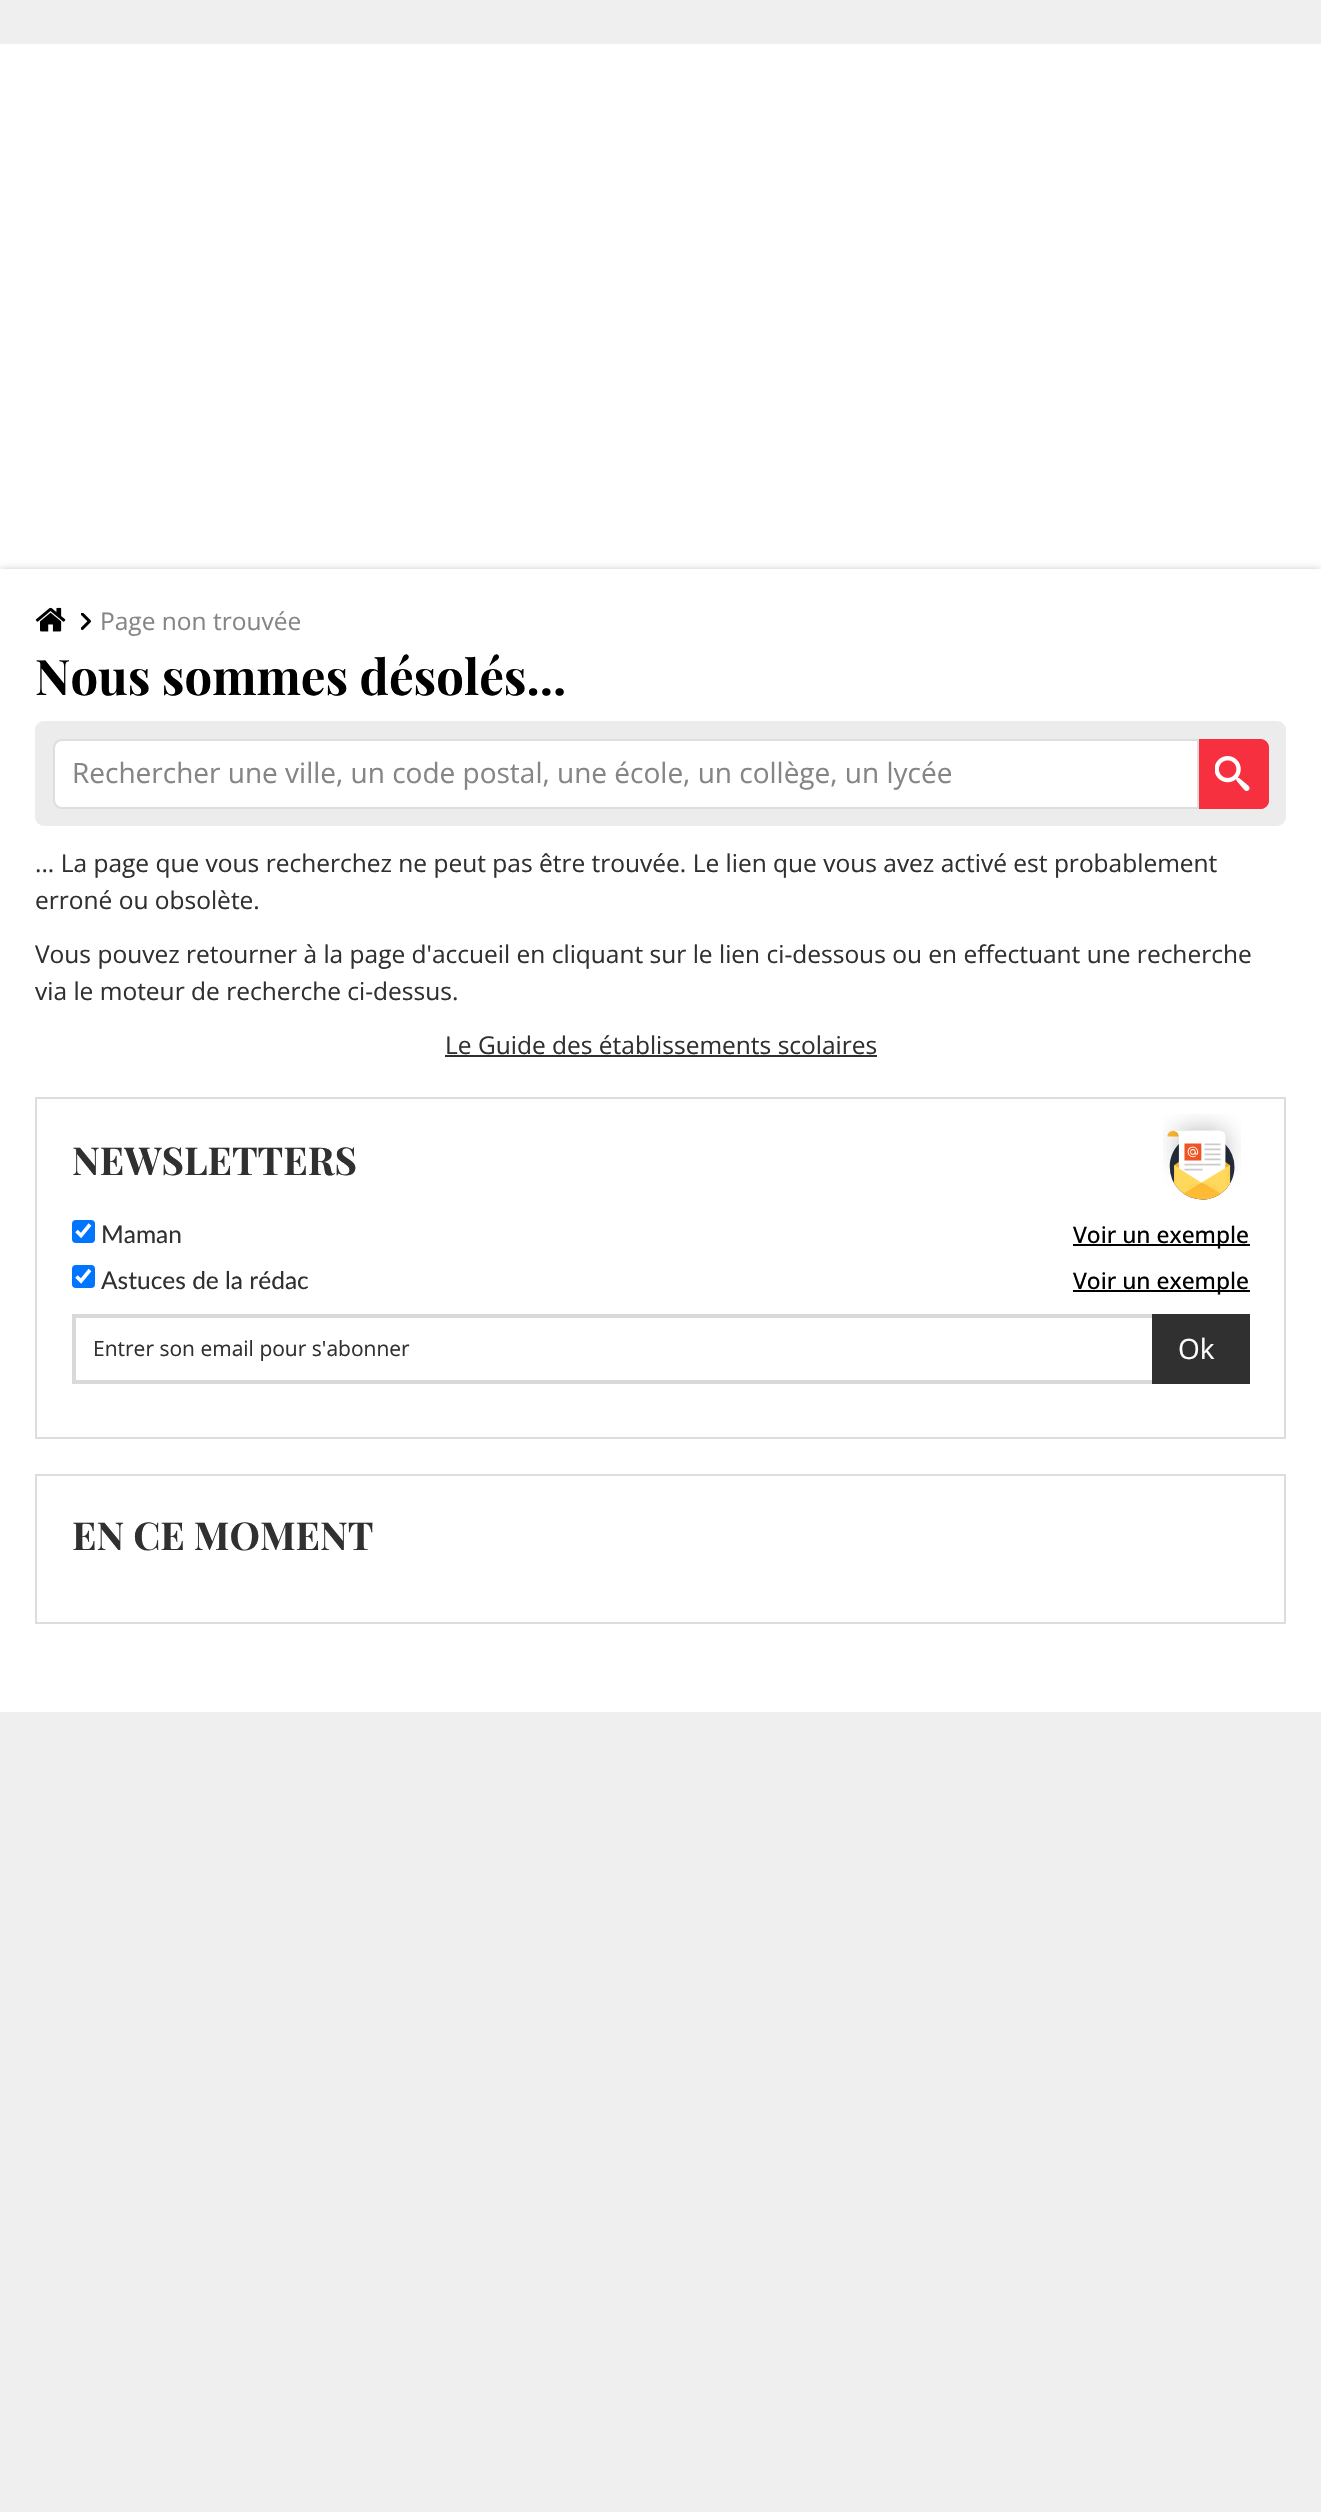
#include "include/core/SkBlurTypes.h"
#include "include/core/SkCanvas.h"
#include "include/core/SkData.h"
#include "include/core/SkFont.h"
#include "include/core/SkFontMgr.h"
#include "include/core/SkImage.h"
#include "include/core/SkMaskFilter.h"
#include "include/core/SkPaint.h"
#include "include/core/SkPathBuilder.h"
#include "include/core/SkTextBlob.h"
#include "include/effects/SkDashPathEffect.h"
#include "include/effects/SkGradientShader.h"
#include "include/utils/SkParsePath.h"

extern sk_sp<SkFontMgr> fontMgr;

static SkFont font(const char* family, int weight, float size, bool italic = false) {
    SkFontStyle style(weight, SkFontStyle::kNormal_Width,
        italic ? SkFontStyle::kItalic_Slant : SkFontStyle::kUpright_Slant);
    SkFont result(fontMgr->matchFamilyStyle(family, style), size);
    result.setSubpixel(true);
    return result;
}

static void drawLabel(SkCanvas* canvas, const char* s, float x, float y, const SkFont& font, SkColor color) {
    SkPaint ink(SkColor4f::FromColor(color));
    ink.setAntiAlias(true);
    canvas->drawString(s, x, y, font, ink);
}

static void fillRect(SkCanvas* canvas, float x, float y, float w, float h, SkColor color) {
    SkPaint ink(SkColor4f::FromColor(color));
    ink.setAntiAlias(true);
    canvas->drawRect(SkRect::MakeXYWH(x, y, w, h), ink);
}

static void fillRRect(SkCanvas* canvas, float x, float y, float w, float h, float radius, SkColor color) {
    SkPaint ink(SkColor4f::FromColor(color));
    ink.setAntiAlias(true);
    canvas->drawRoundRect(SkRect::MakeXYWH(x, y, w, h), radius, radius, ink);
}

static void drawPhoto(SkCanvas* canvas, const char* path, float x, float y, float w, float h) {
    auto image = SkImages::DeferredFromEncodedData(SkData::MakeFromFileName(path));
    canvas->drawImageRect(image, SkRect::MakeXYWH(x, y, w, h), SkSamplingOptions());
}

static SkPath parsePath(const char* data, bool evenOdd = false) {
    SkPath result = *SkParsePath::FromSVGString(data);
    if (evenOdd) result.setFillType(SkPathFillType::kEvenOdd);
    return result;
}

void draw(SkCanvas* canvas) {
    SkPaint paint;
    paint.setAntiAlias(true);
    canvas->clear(0xFFEFEFEF);
    fillRect(canvas, 0, 44, 1321, 525, 0xFFFFFFFF);
    canvas->save();
    canvas->clipRect(SkRect::MakeXYWH(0, 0, 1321, 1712));
    paint.setColor(0x33000000);
    paint.setMaskFilter(SkMaskFilter::MakeBlur(kNormal_SkBlurStyle, 3.5f));
    canvas->drawRect(SkRect::MakeXYWH(0, 569, 1321, 1143), paint);
    paint.setMaskFilter(nullptr);
    canvas->restore();
    fillRect(canvas, 0, 569, 1321, 1143, 0xFFFFFFFF);
    drawPhoto(canvas, "assets/img1.png", 35, 607, 31, 25);
    drawPhoto(canvas, "assets/img2.png", 81, 613, 10, 17);
    SkFont font1 = font("Open Sans", 400, 24.5f);
    drawLabel(canvas, "Page non trouvée", 100, 630, font1, 0xFF858585);
    SkFont font2 = font("Playfair Display", 700, 49);
    drawLabel(canvas, "Nous sommes désolés...", 35, 695, font2, 0xFF000000);
    fillRRect(canvas, 35, 721, 1251, 105, 9, 0xFFECECEC);
    paint.setColor(0xFFFFFFFF);
    canvas->drawPath(parsePath("M62 740H1198V808H62C57.5 808 54 804.5 54 800V748C54 743.5 57.5 740 62 740Z"), paint);
    paint.setStroke(true);
    paint.setStrokeWidth(2);
    paint.setColor(0xFFDEDEDE);
    canvas->drawPath(parsePath("M62 740H1198V808H62C57.5 808 54 804.5 54 800V748C54 743.5 57.5 740 62 740Z"), paint);
    SkFont font3 = font("Open Sans", 400, 28);
    drawLabel(canvas, "Rechercher une ville, un code postal, une école, un collège, un lycée", 72, 783, font3, 0xFF858585);
    paint.setStroke(false);
    paint.setColor(0xFFF6303E);
    canvas->drawPath(parsePath("M1199 739H1260C1265 739 1269 743 1269 748V800C1269 805 1265 809 1260 809H1199Z"), paint);
    drawPhoto(canvas, "assets/img3.png", 1215, 756, 35, 35);
    paint.setStroke(true);
    paint.setStrokeWidth(4);
    canvas->drawPath(parsePath("M1201 741H1260C1264 741 1267 744 1267 748V800C1267 804 1264 807 1260 807H1201Z"), paint);
    drawLabel(canvas, "... La page que vous recherchez ne peut pas être trouvée. Le lien que vous avez activé est probablement", 35, 872, font1, 0xFF303030);
    drawLabel(canvas, "erroné ou obsolète.", 35, 909, font1, 0xFF303030);
    drawLabel(canvas, "Vous pouvez retourner à la page d'accueil en cliquant sur le lien ci-dessous ou en effectuant une recherche", 35, 963, font1, 0xFF303030);
    drawLabel(canvas, "via le moteur de recherche ci-dessus.", 35, 1000, font1, 0xFF303030);
    drawLabel(canvas, "Le Guide des établissements scolaires", 445, 1054, font1, 0xFF303030);
    fillRect(canvas, 445, 1055, 432, 2, 0xFF303030);
    paint.setStrokeWidth(2);
    paint.setColor(0xFFDDDDDD);
    canvas->drawRect(SkRect::MakeXYWH(36, 1098, 1249, 340), paint);
    SkFont font4 = font("Playfair Display", 700, 38.5f);
    drawLabel(canvas, "NEWSLETTERS", 72, 1175, font4, 0xFF303030);
    drawPhoto(canvas, "assets/img4.png", 1163, 1114, 78, 86);
    fillRRect(canvas, 72, 1220, 23, 23, 4, 0xFF0075FF);
    paint.setStrokeWidth(3.6f);
    paint.setColor(0xFFFFFFFF);
    canvas->drawPath(parsePath("M76.5 1231L81 1235.5L90 1224.5"), paint);
    SkFont font5 = font("Lato", 400, 24.5f);
    drawLabel(canvas, "Maman", 101, 1243, font5, 0xFF303030);
    fillRect(canvas, 1073, 1244, 177, 2, 0xFF000000);
    SkFont font6 = font("Open Sans", 500, 22.75f);
    drawLabel(canvas, "Voir un exemple", 1073, 1243, font6, 0xFF000000);
    fillRRect(canvas, 72, 1265, 23, 23, 4, 0xFF0075FF);
    canvas->drawPath(parsePath("M76.5 1276.5L81 1281L90 1270"), paint);
    drawLabel(canvas, "Astuces de la rédac", 101, 1289, font5, 0xFF303030);
    fillRect(canvas, 1073, 1290, 177, 2, 0xFF000000);
    drawLabel(canvas, "Voir un exemple", 1073, 1289, font6, 0xFF000000);
    paint.setStrokeWidth(4);
    paint.setColor(0xFFD9D9D9);
    canvas->drawRect(SkRect::MakeXYWH(74, 1316, 1174, 66), paint);
    SkFont font7 = font("Open Sans", 400, 21);
    drawLabel(canvas, "Entrer son email pour s'abonner", 93, 1356, font7, 0xFF303030);
    fillRect(canvas, 1152, 1314, 98, 70, 0xFF303030);
    drawLabel(canvas, "Ok", 1178, 1359, font3, 0xFFFFFFFF);
    paint.setStrokeWidth(2);
    paint.setColor(0xFFDDDDDD);
    canvas->drawRect(SkRect::MakeXYWH(36, 1475, 1249, 148), paint);
    drawLabel(canvas, "EN CE MOMENT", 72, 1550, font4, 0xFF303030);
}
